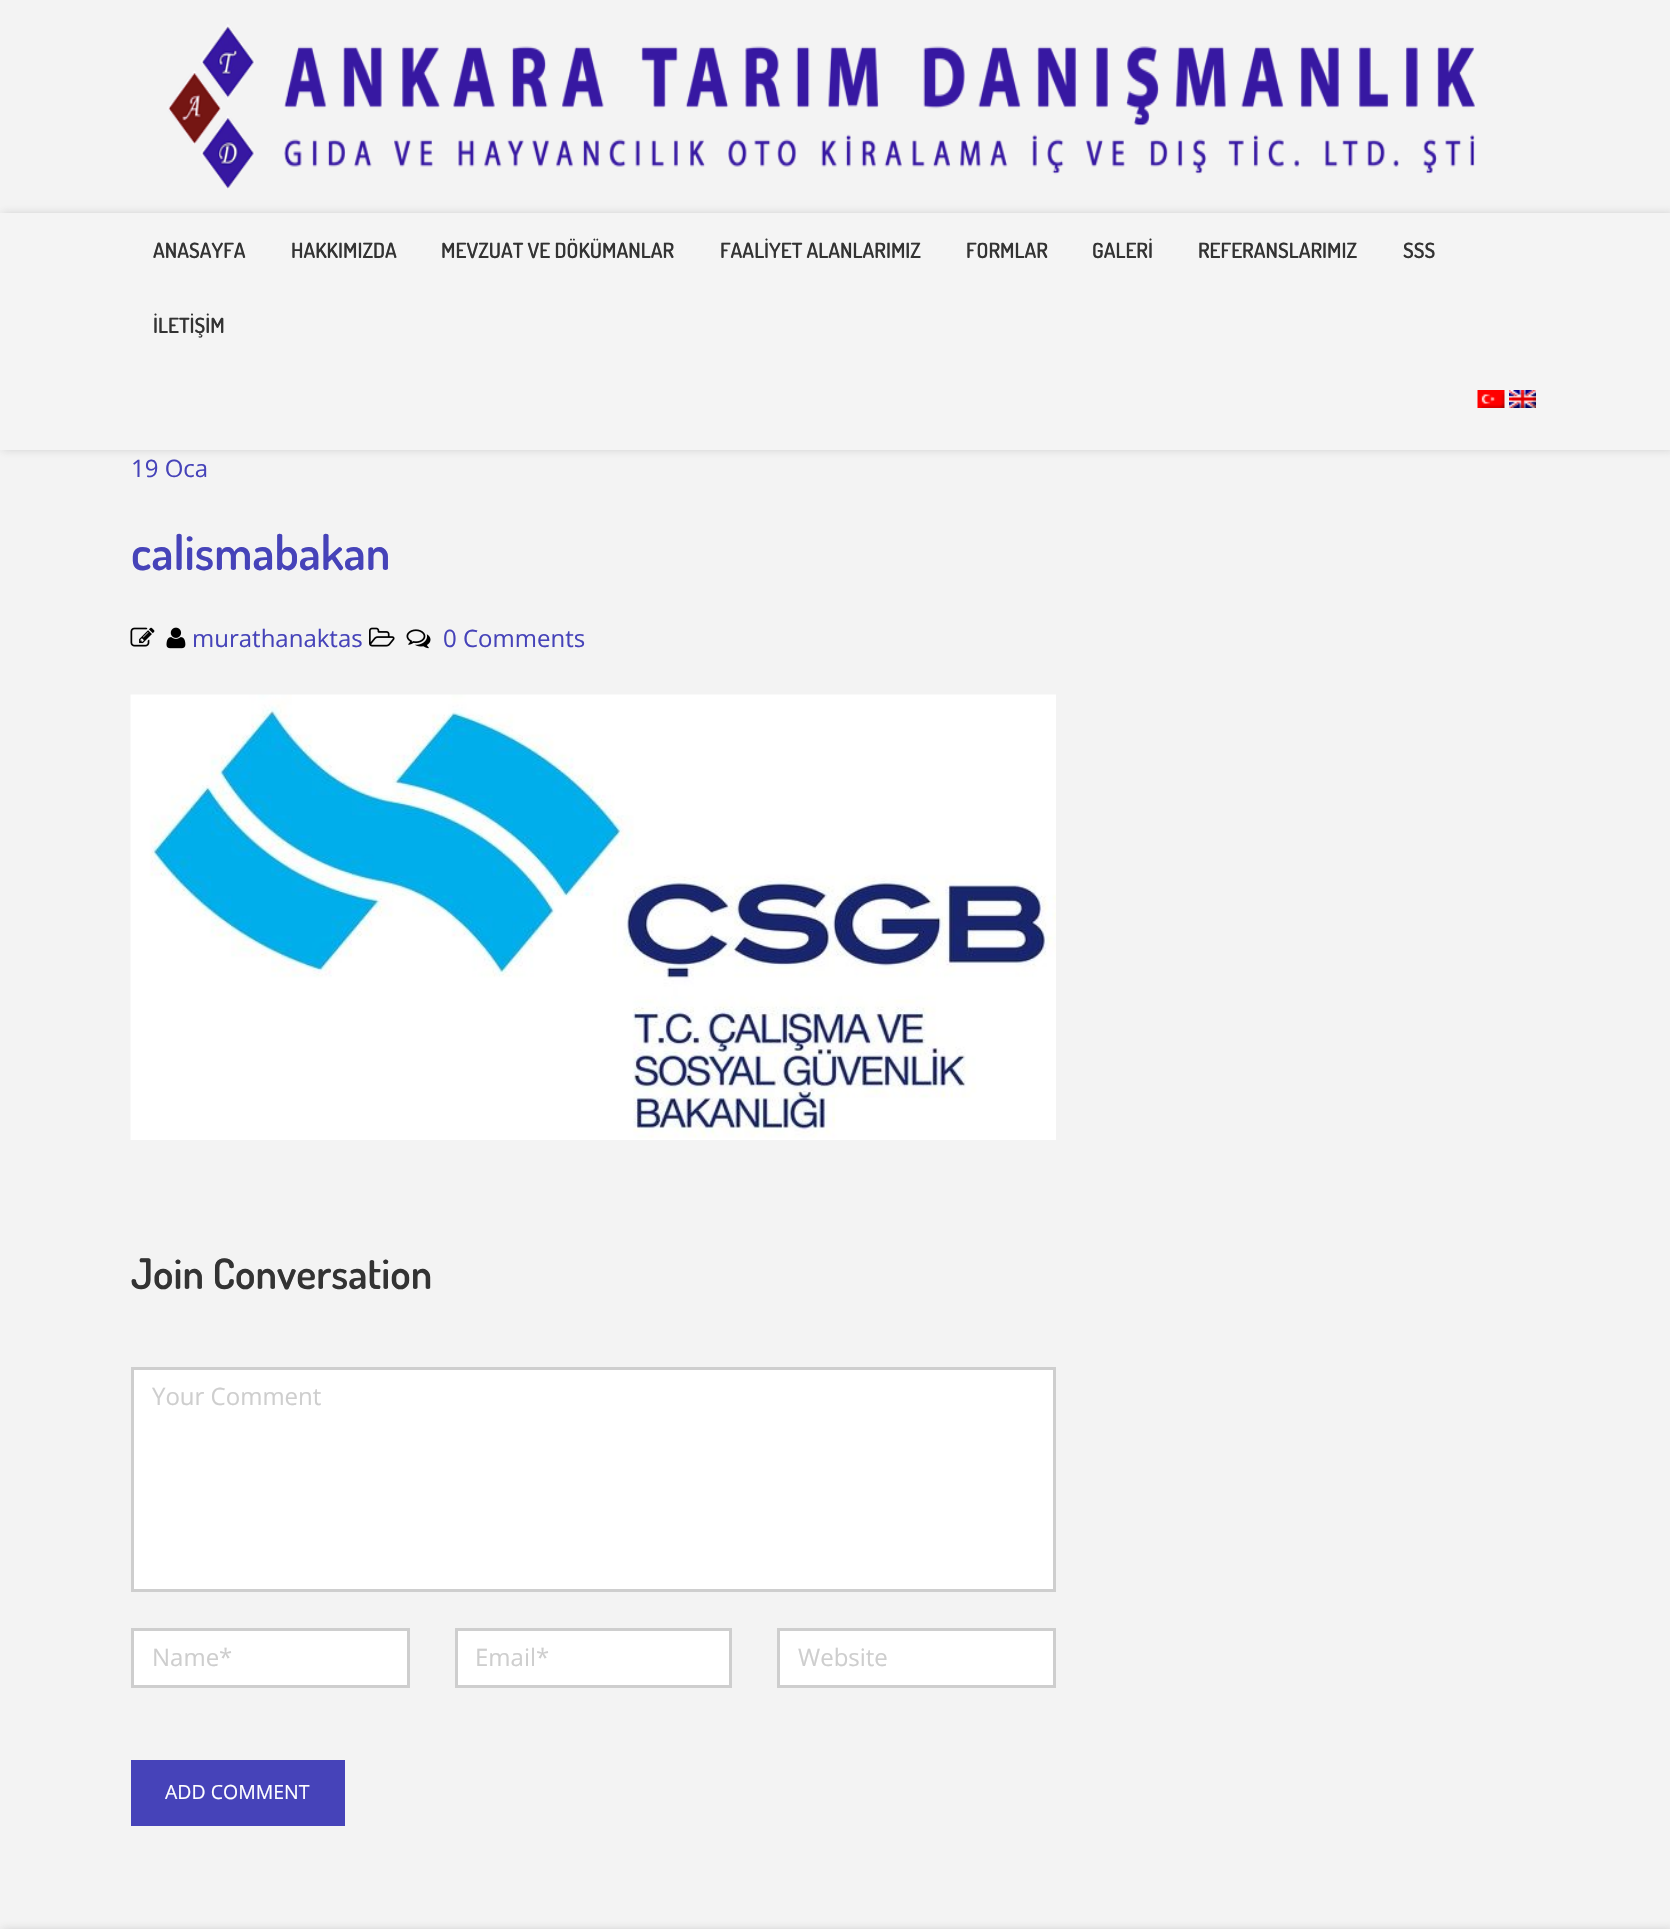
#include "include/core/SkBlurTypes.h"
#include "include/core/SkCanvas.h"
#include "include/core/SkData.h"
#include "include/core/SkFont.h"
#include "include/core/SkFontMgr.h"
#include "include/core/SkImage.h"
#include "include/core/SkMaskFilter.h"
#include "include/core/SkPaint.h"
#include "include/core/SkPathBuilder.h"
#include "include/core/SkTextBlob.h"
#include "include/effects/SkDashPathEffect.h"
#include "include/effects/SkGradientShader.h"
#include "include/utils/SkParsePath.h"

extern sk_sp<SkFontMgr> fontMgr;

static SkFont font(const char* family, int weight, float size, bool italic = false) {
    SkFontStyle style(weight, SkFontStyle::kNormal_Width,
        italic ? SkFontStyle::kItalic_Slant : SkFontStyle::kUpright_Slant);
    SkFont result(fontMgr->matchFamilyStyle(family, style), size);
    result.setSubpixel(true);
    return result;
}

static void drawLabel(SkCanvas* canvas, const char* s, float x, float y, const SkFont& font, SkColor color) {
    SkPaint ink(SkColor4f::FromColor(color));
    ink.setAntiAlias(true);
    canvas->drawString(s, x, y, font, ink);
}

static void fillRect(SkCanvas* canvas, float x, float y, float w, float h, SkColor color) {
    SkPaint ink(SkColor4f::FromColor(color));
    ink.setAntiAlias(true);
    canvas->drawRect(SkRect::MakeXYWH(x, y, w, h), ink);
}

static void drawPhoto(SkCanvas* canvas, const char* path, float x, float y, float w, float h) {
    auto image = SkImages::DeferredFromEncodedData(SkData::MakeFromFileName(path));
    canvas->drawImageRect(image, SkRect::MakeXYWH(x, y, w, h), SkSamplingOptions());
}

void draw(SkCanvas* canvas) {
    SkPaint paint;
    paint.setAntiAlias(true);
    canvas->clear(0xFFF3F3F3);
    drawPhoto(canvas, "assets/img1.png", 167, 24, 1308, 165);
    paint.setColor(0x334D4D4D);
    paint.setMaskFilter(SkMaskFilter::MakeBlur(kNormal_SkBlurStyle, 4));
    canvas->drawRect(SkRect::MakeXYWH(2, 213, 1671, 237), paint);
    paint.setMaskFilter(nullptr);
    fillRect(canvas, 0, 213, 1670, 237, 0xFFF4F4F4);
    SkFont font1 = font("Dosis", 600, 21);
    drawLabel(canvas, "ANASAYFA", 153, 258, font1, 0xFF333333);
    drawLabel(canvas, "HAKKIMIZDA", 291, 258, font1, 0xFF333333);
    drawLabel(canvas, "MEVZUAT VE DÖKÜMANLAR", 441, 258, font1, 0xFF333333);
    drawLabel(canvas, "FAALİYET ALANLARIMIZ", 720, 258, font1, 0xFF333333);
    drawLabel(canvas, "FORMLAR", 966, 258, font1, 0xFF333333);
    drawLabel(canvas, "GALERİ", 1092, 258, font1, 0xFF333333);
    drawLabel(canvas, "REFERANSLARIMIZ", 1198, 258, font1, 0xFF333333);
    drawLabel(canvas, "SSS", 1403, 258, font1, 0xFF333333);
    drawLabel(canvas, "İLETİŞİM", 153, 333, font1, 0xFF333333);
    drawPhoto(canvas, "assets/img2.png", 1477, 390, 28, 18);
    drawPhoto(canvas, "assets/img3.png", 1509, 390, 27, 18);
    SkFont font2 = font("Open Sans", 400, 24);
    drawLabel(canvas, "19 Oca", 131, 477, font2, 0xFF4643B9);
    SkFont font3 = font("Dosis", 600, 48);
    drawLabel(canvas, "calismabakan", 131, 570, font3, 0xFF4643B9);
    drawPhoto(canvas, "assets/img4.png", 130, 627, 25, 20);
    drawPhoto(canvas, "assets/img5.png", 166, 627, 20, 22);
    drawLabel(canvas, "murathanaktas", 192, 647, font2, 0xFF4643B9);
    drawPhoto(canvas, "assets/img6.png", 369, 627, 26, 20);
    drawPhoto(canvas, "assets/img7.png", 406, 629, 25, 20);
    drawLabel(canvas, "0 Comments", 443, 647, font2, 0xFF4643B9);
    drawPhoto(canvas, "assets/img8.png", 130, 694, 926, 446);
    SkFont font4 = font("Dosis", 600, 42);
    drawLabel(canvas, "Join Conversation", 131, 1289, font4, 0xFF333333);
    paint.setColor(0xFFFFFFFF);
    canvas->drawRect(SkRect::MakeXYWH(132.5f, 1368.5f, 922, 222), paint);
    paint.setStroke(true);
    paint.setStrokeWidth(3);
    paint.setColor(0xFFCECECE);
    canvas->drawRect(SkRect::MakeXYWH(132.5f, 1368.5f, 922, 222), paint);
    drawLabel(canvas, "Your Comment", 152, 1405, font2, 0xFFCECECE);
    paint.setStroke(false);
    paint.setColor(0xFFFFFFFF);
    canvas->drawRect(SkRect::MakeXYWH(132.5f, 1629.5f, 276, 57), paint);
    paint.setStroke(true);
    paint.setColor(0xFFCECECE);
    canvas->drawRect(SkRect::MakeXYWH(132.5f, 1629.5f, 276, 57), paint);
    drawLabel(canvas, "Name*", 152, 1666, font2, 0xFFCECECE);
    paint.setStroke(false);
    paint.setColor(0xFFFFFFFF);
    canvas->drawRect(SkRect::MakeXYWH(456.5f, 1629.5f, 274, 57), paint);
    paint.setStroke(true);
    paint.setColor(0xFFCECECE);
    canvas->drawRect(SkRect::MakeXYWH(456.5f, 1629.5f, 274, 57), paint);
    drawLabel(canvas, "Email*", 475, 1666, font2, 0xFFCECECE);
    paint.setStroke(false);
    paint.setColor(0xFFFFFFFF);
    canvas->drawRect(SkRect::MakeXYWH(778.5f, 1629.5f, 276, 57), paint);
    paint.setStroke(true);
    paint.setColor(0xFFCECECE);
    canvas->drawRect(SkRect::MakeXYWH(778.5f, 1629.5f, 276, 57), paint);
    drawLabel(canvas, "Website", 798, 1666, font2, 0xFFCECECE);
    fillRect(canvas, 131, 1760, 214, 66, 0xFF4643B9);
    SkFont font5 = font("Open Sans", 400, 19.5f);
    drawLabel(canvas, "ADD COMMENT", 165, 1799, font5, 0xFFFFFFFF);
    paint.setStroke(false);
    paint.setColor(0x334D4D4D);
    paint.setMaskFilter(SkMaskFilter::MakeBlur(kNormal_SkBlurStyle, 4));
    canvas->drawRect(SkRect::MakeXYWH(2, 1929, 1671, 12), paint);
    paint.setMaskFilter(nullptr);
}
